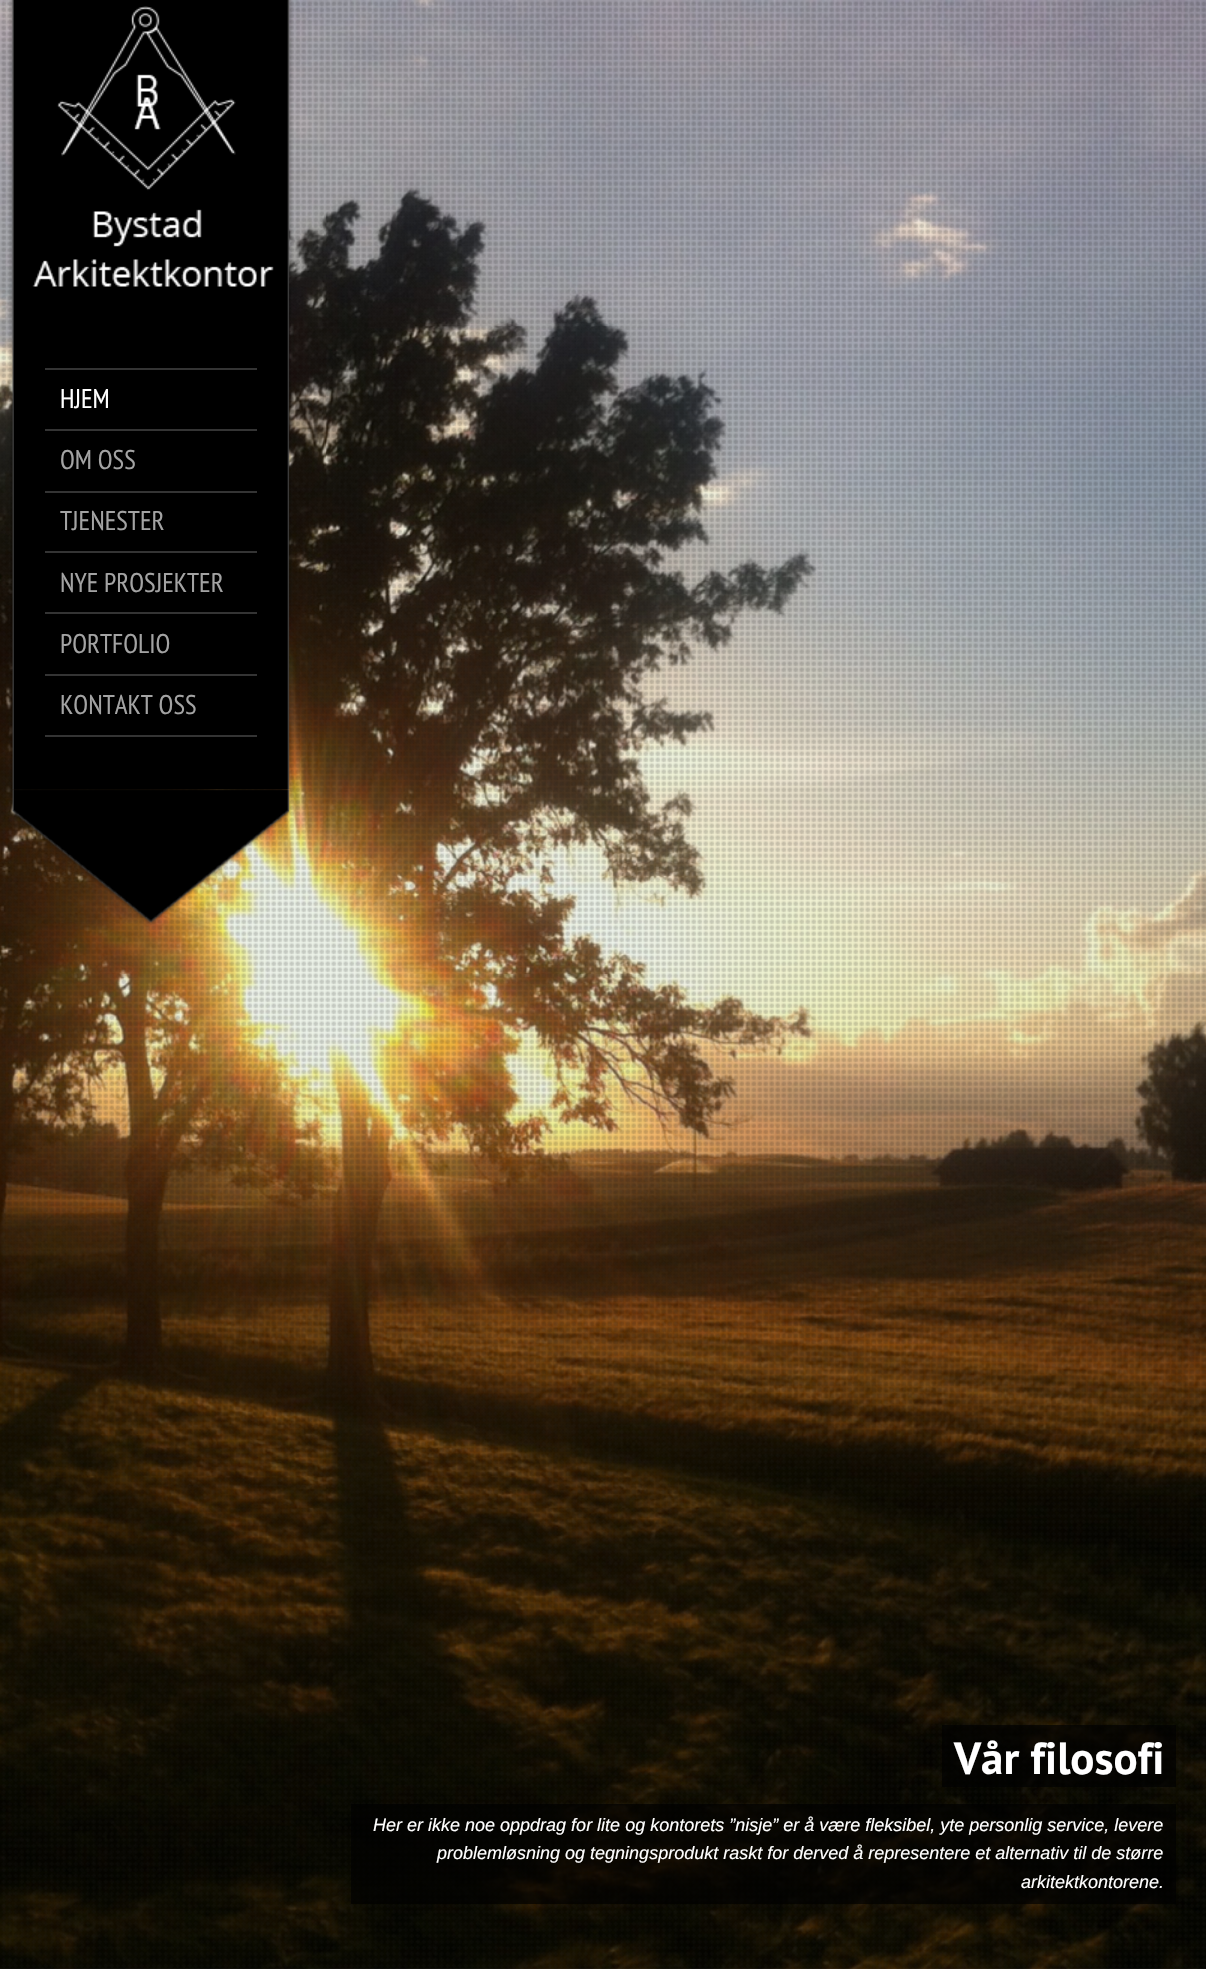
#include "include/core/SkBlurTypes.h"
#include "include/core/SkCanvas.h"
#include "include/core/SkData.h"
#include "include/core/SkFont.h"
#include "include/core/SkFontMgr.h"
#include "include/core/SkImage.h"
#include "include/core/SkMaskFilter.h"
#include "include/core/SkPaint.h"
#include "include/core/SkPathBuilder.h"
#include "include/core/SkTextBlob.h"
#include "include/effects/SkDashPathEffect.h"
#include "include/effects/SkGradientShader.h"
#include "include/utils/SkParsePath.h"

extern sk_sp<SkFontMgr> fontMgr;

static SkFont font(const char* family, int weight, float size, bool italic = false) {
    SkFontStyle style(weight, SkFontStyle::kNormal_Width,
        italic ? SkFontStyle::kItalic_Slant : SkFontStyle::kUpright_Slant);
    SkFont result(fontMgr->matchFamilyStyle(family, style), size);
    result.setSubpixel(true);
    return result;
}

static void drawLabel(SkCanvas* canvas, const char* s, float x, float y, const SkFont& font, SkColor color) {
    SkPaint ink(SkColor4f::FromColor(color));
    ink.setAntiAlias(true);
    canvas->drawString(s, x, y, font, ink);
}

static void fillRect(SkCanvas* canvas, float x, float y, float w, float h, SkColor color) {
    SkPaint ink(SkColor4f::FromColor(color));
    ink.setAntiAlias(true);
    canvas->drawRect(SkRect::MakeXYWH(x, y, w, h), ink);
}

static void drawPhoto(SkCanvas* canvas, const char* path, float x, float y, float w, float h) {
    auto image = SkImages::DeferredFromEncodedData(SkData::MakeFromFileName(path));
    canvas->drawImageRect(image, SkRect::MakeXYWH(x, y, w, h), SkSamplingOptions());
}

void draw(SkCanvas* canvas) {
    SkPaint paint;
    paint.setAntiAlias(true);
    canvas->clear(0xFFFFFFFF);
    drawPhoto(canvas, "assets/img2.png", 0, 1968, 1206, 1);
    drawPhoto(canvas, "assets/img1.png", 0, 0, 1206, 1969);
    drawPhoto(canvas, "assets/img3.png", 0, 0, 1206, 1969);
    drawPhoto(canvas, "assets/img4.png", 9, 0, 284, 789);
    drawPhoto(canvas, "assets/img5.png", 32, 6, 242, 281);
    fillRect(canvas, 45, 368, 212, 2, 0xFF343434);
    fillRect(canvas, 45, 429, 212, 2, 0xFF343434);
    SkFont font1 = font("PT Sans Narrow", 400, 27);
    drawLabel(canvas, "HJEM", 60, 408, font1, 0xFFFFFFFF);
    fillRect(canvas, 45, 491, 212, 2, 0xFF343434);
    drawLabel(canvas, "OM OSS", 60, 469, font1, 0xFFA3A3A3);
    fillRect(canvas, 45, 551, 212, 2, 0xFF343434);
    drawLabel(canvas, "TJENESTER", 60, 530, font1, 0xFFA3A3A3);
    fillRect(canvas, 45, 612, 212, 2, 0xFF343434);
    drawLabel(canvas, "NYE PROSJEKTER", 60, 592, font1, 0xFFA3A3A3);
    fillRect(canvas, 45, 674, 212, 2, 0xFF343434);
    drawLabel(canvas, "PORTFOLIO", 60, 653, font1, 0xFFA3A3A3);
    fillRect(canvas, 45, 735, 212, 2, 0xFF343434);
    drawLabel(canvas, "KONTAKT OSS", 60, 714, font1, 0xFFA3A3A3);
    drawPhoto(canvas, "assets/img6.png", 10, 788, 283, 137);
    fillRect(canvas, 942, 1725, 234, 62, 0xB3000000);
    SkFont font2 = font("PT Sans", 700, 45);
    drawLabel(canvas, "Vår filosofi", 954, 1774, font2, 0xFFFFFFFF);
    fillRect(canvas, 351, 1804, 825, 100, 0xB3000000);
    SkFont font3 = font("Liberation Sans", 400, 18, true);
    drawLabel(canvas, "Her er ikke noe oppdrag for lite og kontorets ”nisje” er å være fleksibel, yte personlig service, levere", 373, 1831, font3, 0xFFFFFFFF);
    drawLabel(canvas, "problemløsning og tegningsprodukt raskt for derved å representere et alternativ til de større", 437, 1859, font3, 0xFFFFFFFF);
    drawLabel(canvas, "arkitektkontorene.", 1021, 1888, font3, 0xFFFFFFFF);
}
